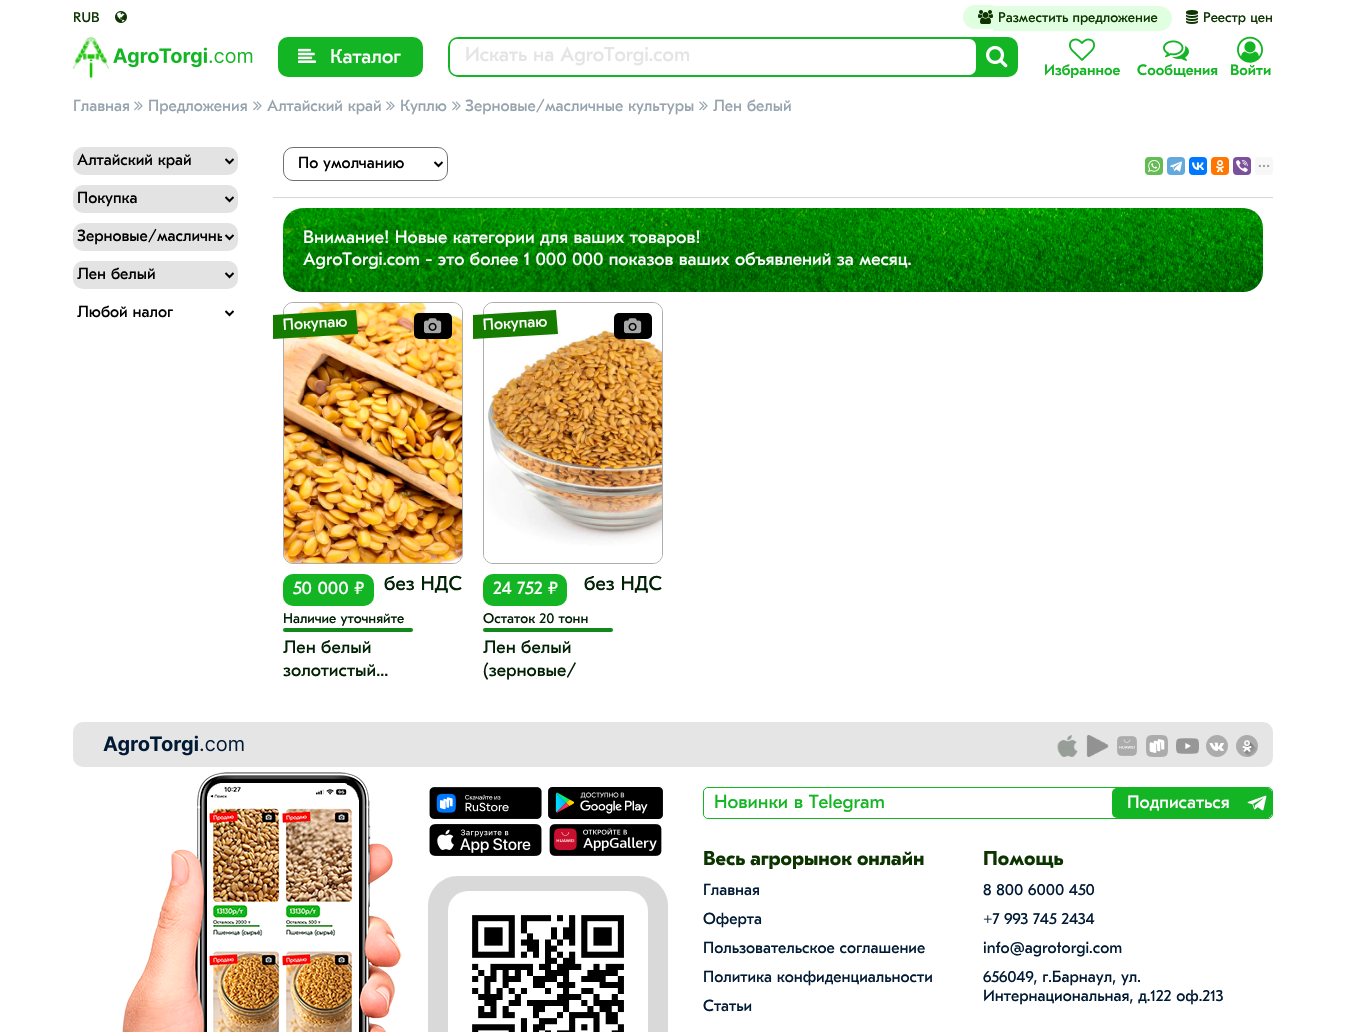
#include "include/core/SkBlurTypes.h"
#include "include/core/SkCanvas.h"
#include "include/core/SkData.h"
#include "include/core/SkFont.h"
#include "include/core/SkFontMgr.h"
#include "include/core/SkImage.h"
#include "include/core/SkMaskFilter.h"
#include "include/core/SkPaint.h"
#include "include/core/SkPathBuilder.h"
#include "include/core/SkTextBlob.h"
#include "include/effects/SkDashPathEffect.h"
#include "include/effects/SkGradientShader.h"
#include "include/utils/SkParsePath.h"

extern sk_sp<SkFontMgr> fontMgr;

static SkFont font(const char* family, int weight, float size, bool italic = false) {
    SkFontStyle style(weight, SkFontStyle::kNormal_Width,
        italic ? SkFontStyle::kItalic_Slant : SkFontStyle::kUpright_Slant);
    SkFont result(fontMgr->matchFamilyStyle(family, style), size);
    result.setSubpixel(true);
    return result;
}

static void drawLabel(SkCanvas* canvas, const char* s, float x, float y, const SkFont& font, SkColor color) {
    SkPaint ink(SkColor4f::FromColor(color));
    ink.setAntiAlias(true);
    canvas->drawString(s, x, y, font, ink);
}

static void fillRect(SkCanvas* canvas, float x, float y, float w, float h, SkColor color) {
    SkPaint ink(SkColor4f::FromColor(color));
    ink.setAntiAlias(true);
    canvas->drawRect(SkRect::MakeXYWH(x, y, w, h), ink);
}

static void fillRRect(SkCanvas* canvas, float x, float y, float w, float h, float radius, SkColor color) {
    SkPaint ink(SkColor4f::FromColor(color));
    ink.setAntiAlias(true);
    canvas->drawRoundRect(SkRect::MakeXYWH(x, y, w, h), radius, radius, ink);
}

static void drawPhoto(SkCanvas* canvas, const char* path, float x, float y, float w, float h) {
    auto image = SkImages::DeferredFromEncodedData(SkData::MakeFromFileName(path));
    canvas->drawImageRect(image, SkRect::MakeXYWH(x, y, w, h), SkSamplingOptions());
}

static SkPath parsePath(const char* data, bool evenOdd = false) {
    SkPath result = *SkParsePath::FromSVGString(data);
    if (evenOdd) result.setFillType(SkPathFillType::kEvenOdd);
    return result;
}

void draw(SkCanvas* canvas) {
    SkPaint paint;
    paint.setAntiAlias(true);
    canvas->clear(0xFFFFFFFF);
    SkFont font1 = font("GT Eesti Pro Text", 400, 14);
    drawLabel(canvas, "RUB", 73, 22, font1, 0xFF0C3400);
    drawPhoto(canvas, "assets/img1.png", 115, 11, 12, 12);
    paint.setColor(0xFFE0FFE1);
    canvas->drawPath(parsePath("M975 5H993V29H975C968.5 29 963 23.5 963 17C963 10.5 968.5 5 975 5Z"), paint);
    drawPhoto(canvas, "assets/img2.png", 978, 10, 15, 14);
    canvas->drawPath(parsePath("M993 6H1159.5C1166.5 6 1172 11.5 1172 18.5C1172 25.5 1166.5 31 1159.5 31H993Z"), paint);
    drawLabel(canvas, "Разместить предложение", 998, 22, font1, 0xFF0C3400);
    drawPhoto(canvas, "assets/img3.png", 1186, 10, 12, 14);
    drawLabel(canvas, "Реестр цен", 1203, 22, font1, 0xFF0C3400);
    drawPhoto(canvas, "assets/img4.png", 73, 37, 36, 41);
    drawPhoto(canvas, "assets/img5.png", 113, 47, 140, 21);
    fillRRect(canvas, 278, 37, 145, 40, 10, 0xFF14B524);
    drawPhoto(canvas, "assets/img6.png", 298, 48, 18, 15);
    SkFont font2 = font("GT Eesti Pro Text", 400, 20);
    drawLabel(canvas, "Каталог", 330, 63, font2, 0xFFFFFFFF);
    fillRRect(canvas, 448, 37, 570, 40, 10, 0xFF14B524);
    fillRRect(canvas, 450, 39, 526, 36, 7, 0xFFFFFFFF);
    drawPhoto(canvas, "assets/img7.png", 986, 45, 22, 23);
    drawLabel(canvas, "Искать на AgroTorgi.com", 465, 61, font2, 0xFFE4E4E4);
    drawPhoto(canvas, "assets/img8.png", 1069, 38, 26, 23);
    SkFont font3 = font("GT Eesti Pro Text", 500, 15);
    drawLabel(canvas, "Избранное", 1044, 75, font3, 0xFF14B524);
    drawPhoto(canvas, "assets/img9.png", 1163, 40, 26, 21);
    drawLabel(canvas, "Сообщения", 1137, 75, font3, 0xFF14B524);
    drawPhoto(canvas, "assets/img10.png", 1237, 36, 26, 27);
    drawLabel(canvas, "Войти", 1230, 75, font3, 0xFF14B524);
    SkFont font4 = font("GT Eesti Pro Text", 400, 16);
    drawLabel(canvas, "Главная", 73, 111, font4, 0xFF96A3AE);
    drawPhoto(canvas, "assets/img11.png", 134, 101, 9, 10);
    drawLabel(canvas, "Предложения", 148, 111, font4, 0xFF96A3AE);
    drawPhoto(canvas, "assets/img11.png", 253, 101, 9, 10);
    drawLabel(canvas, "Алтайский край", 267, 111, font4, 0xFF96A3AE);
    drawPhoto(canvas, "assets/img11.png", 386, 101, 9, 10);
    drawLabel(canvas, "Куплю", 400, 111, font4, 0xFF96A3AE);
    drawPhoto(canvas, "assets/img11.png", 452, 101, 9, 10);
    drawLabel(canvas, "Зерновые/масличные культуры", 465, 111, font4, 0xFF96A3AE);
    drawPhoto(canvas, "assets/img11.png", 699, 101, 9, 10);
    drawLabel(canvas, "Лен белый", 713, 111, font4, 0xFF96A3AE);
    fillRRect(canvas, 73, 147, 165, 28, 10, 0xFFE3E3E3);
    paint.setStroke(true);
    paint.setStrokeWidth(2);
    paint.setColor(0xFF000000);
    canvas->drawPath(parsePath("M225.5 159L229.5 163L233.5 159"), paint);
    drawLabel(canvas, "Алтайский край", 77, 165, font4, 0xFF000000);
    paint.setStrokeWidth(1);
    paint.setColor(0xFF707070);
    canvas->drawRoundRect(SkRect::MakeXYWH(283.5f, 147.5f, 164, 33), 9.5f, 9.5f, paint);
    paint.setStrokeWidth(2);
    paint.setColor(0xFF000000);
    canvas->drawPath(parsePath("M434.5 162L438.5 166L442.5 162"), paint);
    drawLabel(canvas, "По умолчанию", 298, 168, font4, 0xFF000000);
    fillRRect(canvas, 1145, 157, 18, 18, 4, 0xFF65BC54);
    drawPhoto(canvas, "assets/img12.png", 1148, 160, 12, 12);
    fillRRect(canvas, 1167, 157, 18, 18, 4, 0xFF64A9DC);
    drawPhoto(canvas, "assets/img13.png", 1170, 161, 12, 11);
    fillRRect(canvas, 1189, 157, 18, 18, 4, 0xFF0077FF);
    drawPhoto(canvas, "assets/img14.png", 1192, 162, 12, 8);
    fillRRect(canvas, 1211, 157, 18, 18, 4, 0xFFFF7700);
    drawPhoto(canvas, "assets/img15.png", 1216, 160, 8, 12);
    fillRRect(canvas, 1233, 157, 18, 18, 4, 0xFF7B519D);
    drawPhoto(canvas, "assets/img16.png", 1236, 160, 12, 12);
    fillRRect(canvas, 1255, 157, 18, 18, 4, 0xFFF7F7F7);
    drawPhoto(canvas, "assets/img17.png", 1258, 164, 12, 4);
    fillRRect(canvas, 73, 185, 165, 28, 10, 0xFFE3E3E3);
    canvas->drawPath(parsePath("M225.5 197L229.5 201L233.5 197"), paint);
    drawLabel(canvas, "Покупка", 77, 203, font4, 0xFF000000);
    fillRRect(canvas, 73, 223, 165, 28, 10, 0xFFE3E3E3);
    canvas->drawPath(parsePath("M225.5 235L229.5 239L233.5 235"), paint);
    canvas->save();
    canvas->clipRect(SkRect::MakeXYWH(77, 228, 145, 18));
    drawLabel(canvas, "Зерновые/масличны", 77, 241, font4, 0xFF000000);
    canvas->restore();
    fillRRect(canvas, 73, 261, 165, 28, 10, 0xFFE3E3E3);
    canvas->drawPath(parsePath("M225.5 273L229.5 277L233.5 273"), paint);
    drawLabel(canvas, "Лен белый", 77, 279, font4, 0xFF000000);
    canvas->drawPath(parsePath("M225.5 311L229.5 315L233.5 311"), paint);
    drawLabel(canvas, "Любой налог", 77, 317, font4, 0xFF000000);
    fillRect(canvas, 273, 197, 1000, 1, 0xFFD6D6D6);
    drawPhoto(canvas, "assets/img18.png", 283, 208, 980, 84);
    SkFont font5 = font("GT Eesti Pro Text", 400, 18);
    drawLabel(canvas, "Внимание! Новые категории для ваших товаров!", 303, 243, font5, 0xFFFFFFFF);
    drawLabel(canvas, "AgroTorgi.com - это более 1 000 000 показов ваших объявлений за месяц.", 303, 265, font5, 0xFFFFFFFF);
    paint.setStrokeWidth(1);
    paint.setColor(0xFFADADAD);
    canvas->drawRoundRect(SkRect::MakeXYWH(283.5f, 302.5f, 179, 261), 9.5f, 9.5f, paint);
    drawPhoto(canvas, "assets/img19.png", 284, 303, 178, 260);
    fillRRect(canvas, 414, 313, 38, 26, 5, 0xFF000000);
    drawPhoto(canvas, "assets/img20.png", 424, 318, 18, 16);
    paint.setStroke(false);
    paint.setColor(0xFF157C00);
    canvas->drawPath(parsePath("M273 339V315L356 310L358 334Z"), paint);
    canvas->save();
    canvas->rotate(-3.4f, 283, 330);
    drawLabel(canvas, "Покупаю", 283, 330, font4, 0xFFFFFFFF);
    canvas->restore();
    fillRRect(canvas, 283, 574, 91, 32, 10, 0xFF14B524);
    drawLabel(canvas, "50 000 ₽", 293, 594, font5, 0xFFFFFFFF);
    drawLabel(canvas, "без НДС", 384, 590, font2, 0xFF002004);
    drawLabel(canvas, "Наличие уточняйте", 283, 623, font1, 0xFF002004);
    fillRRect(canvas, 283, 628, 130, 4, 2, 0xFF10881C);
    drawLabel(canvas, "Лен белый", 283, 653, font5, 0xFF002004);
    drawLabel(canvas, "золотистый...", 283, 676, font5, 0xFF002004);
    paint.setStroke(true);
    paint.setColor(0xFFADADAD);
    canvas->drawRoundRect(SkRect::MakeXYWH(483.5f, 302.5f, 179, 261), 9.5f, 9.5f, paint);
    drawPhoto(canvas, "assets/img21.png", 484, 303, 178, 260);
    fillRRect(canvas, 614, 313, 38, 26, 5, 0xFF000000);
    drawPhoto(canvas, "assets/img20.png", 624, 318, 18, 16);
    paint.setStroke(false);
    paint.setColor(0xFF157C00);
    canvas->drawPath(parsePath("M473 339V315L556 310L558 334Z"), paint);
    canvas->save();
    canvas->rotate(-3.4f, 483, 330);
    drawLabel(canvas, "Покупаю", 483, 330, font4, 0xFFFFFFFF);
    canvas->restore();
    fillRRect(canvas, 483, 574, 84, 32, 10, 0xFF14B524);
    drawLabel(canvas, "24 752 ₽", 493, 594, font5, 0xFFFFFFFF);
    drawLabel(canvas, "без НДС", 584, 590, font2, 0xFF002004);
    drawLabel(canvas, "Остаток 20 тонн", 483, 623, font1, 0xFF002004);
    fillRRect(canvas, 483, 628, 130, 4, 2, 0xFF10881C);
    drawLabel(canvas, "Лен белый", 483, 653, font5, 0xFF002004);
    drawLabel(canvas, "(зерновые/", 483, 676, font5, 0xFF002004);
    fillRRect(canvas, 73, 722, 1200, 45, 10, 0xFFE5E5E5);
    drawPhoto(canvas, "assets/img22.png", 103, 735, 141, 21);
    drawPhoto(canvas, "assets/img23.png", 1057, 735, 21, 22);
    drawPhoto(canvas, "assets/img24.png", 1086, 735, 23, 22);
    drawPhoto(canvas, "assets/img25.png", 1117, 736, 20, 20);
    drawPhoto(canvas, "assets/img26.png", 1146, 735, 22, 22);
    drawPhoto(canvas, "assets/img27.png", 1176, 738, 23, 16);
    drawPhoto(canvas, "assets/img28.png", 1206, 735, 22, 22);
    drawPhoto(canvas, "assets/img29.png", 1236, 735, 22, 22);
    drawPhoto(canvas, "assets/img30.png", 122, 772, 280, 260);
    drawPhoto(canvas, "assets/img31.png", 429, 787, 113, 32);
    drawPhoto(canvas, "assets/img32.png", 548, 787, 115, 32);
    drawPhoto(canvas, "assets/img33.png", 429, 824, 113, 32);
    drawPhoto(canvas, "assets/img34.png", 549, 824, 113, 32);
    paint.setColor(0xFFD9D9D9);
    canvas->drawPath(parsePath("M458 876H638C654.5 876 668 889.5 668 906V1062H428V906C428 889.5 441.5 876 458 876Z"), paint);
    drawPhoto(canvas, "assets/img35.png", 448, 891, 200, 141);
    paint.setStroke(true);
    paint.setColor(0xFF14B524);
    canvas->drawRoundRect(SkRect::MakeXYWH(703.5f, 787.5f, 569, 31), 4.5f, 4.5f, paint);
    fillRRect(canvas, 704, 788, 568, 30, 5, 0xFFFFFFFF);
    SkFont font6 = font("GT Eesti Pro Text", 400, 19);
    drawLabel(canvas, "Новинки в Telegram", 714, 808, font6, 0xFF14B524);
    fillRRect(canvas, 1112, 788, 160, 30, 5, 0xFF14B524);
    drawPhoto(canvas, "assets/img36.png", 1247, 788, 25, 30);
    drawLabel(canvas, "Подписаться", 1127, 808, font5, 0xFFFFFFFF);
    SkFont font7 = font("GT Eesti Pro Text", 700, 20);
    drawLabel(canvas, "Весь агрорынок онлайн", 703, 865, font7, 0xFF0C3400);
    drawLabel(canvas, "Главная", 703, 895, font4, 0xFF001A34);
    drawLabel(canvas, "Оферта", 703, 924, font4, 0xFF001A34);
    drawLabel(canvas, "Пользовательское соглашение", 703, 953, font4, 0xFF001A34);
    drawLabel(canvas, "Политика конфиденциальности", 703, 982, font4, 0xFF001A34);
    drawLabel(canvas, "Статьи", 703, 1011, font4, 0xFF001A34);
    drawLabel(canvas, "Помощь", 983, 865, font7, 0xFF0C3400);
    drawLabel(canvas, "8 800 6000 450", 983, 895, font4, 0xFF001A34);
    drawLabel(canvas, "+7 993 745 2434", 983, 924, font4, 0xFF001A34);
    drawLabel(canvas, "info@agrotorgi.com", 983, 953, font4, 0xFF001A34);
    drawLabel(canvas, "656049, г.Барнаул, ул.", 983, 982, font4, 0xFF001A34);
    drawLabel(canvas, "Интернациональная, д.122 оф.213", 983, 1001, font4, 0xFF001A34);
}
